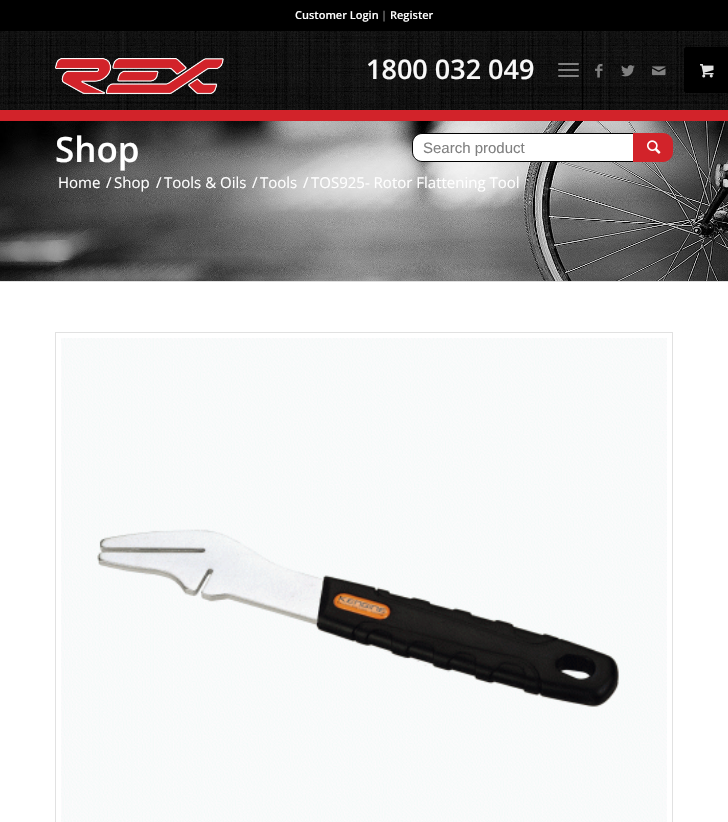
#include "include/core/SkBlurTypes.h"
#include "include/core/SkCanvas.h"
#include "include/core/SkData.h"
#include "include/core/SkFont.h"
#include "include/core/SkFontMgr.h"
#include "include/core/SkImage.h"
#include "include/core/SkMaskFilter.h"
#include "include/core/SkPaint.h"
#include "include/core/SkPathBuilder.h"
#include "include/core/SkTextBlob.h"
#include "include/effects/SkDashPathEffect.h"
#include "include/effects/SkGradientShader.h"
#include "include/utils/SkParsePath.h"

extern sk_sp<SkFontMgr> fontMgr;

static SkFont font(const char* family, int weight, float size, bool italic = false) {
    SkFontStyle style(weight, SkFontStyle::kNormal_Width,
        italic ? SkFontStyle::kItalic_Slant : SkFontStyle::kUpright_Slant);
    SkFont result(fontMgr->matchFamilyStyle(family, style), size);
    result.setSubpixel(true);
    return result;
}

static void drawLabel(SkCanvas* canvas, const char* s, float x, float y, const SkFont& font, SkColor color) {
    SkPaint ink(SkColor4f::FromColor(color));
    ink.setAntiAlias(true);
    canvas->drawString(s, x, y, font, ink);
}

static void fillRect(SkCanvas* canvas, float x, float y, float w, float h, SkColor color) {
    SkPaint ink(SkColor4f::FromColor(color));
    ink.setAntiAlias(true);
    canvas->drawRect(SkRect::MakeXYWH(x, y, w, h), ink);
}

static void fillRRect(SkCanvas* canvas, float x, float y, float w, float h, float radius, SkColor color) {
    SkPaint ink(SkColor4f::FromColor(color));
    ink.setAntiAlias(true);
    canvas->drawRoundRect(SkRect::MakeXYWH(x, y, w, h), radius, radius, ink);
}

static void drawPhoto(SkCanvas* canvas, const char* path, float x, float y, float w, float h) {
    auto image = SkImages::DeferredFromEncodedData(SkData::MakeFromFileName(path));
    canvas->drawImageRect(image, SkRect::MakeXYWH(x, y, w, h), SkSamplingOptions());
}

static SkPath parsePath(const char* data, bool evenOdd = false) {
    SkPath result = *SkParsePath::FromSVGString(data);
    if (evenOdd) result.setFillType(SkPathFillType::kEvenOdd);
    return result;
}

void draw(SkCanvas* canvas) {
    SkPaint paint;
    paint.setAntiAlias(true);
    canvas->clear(0xFFFFFFFF);
    fillRect(canvas, 0, 110, 728, 11, 0xFFD2232A);
    fillRect(canvas, 0, 31, 728, 79, 0xFF000000);
    drawPhoto(canvas, "assets/img1.png", 0, 31, 728, 79);
    fillRect(canvas, 582, 30, 1, 80, 0xFF000000);
    fillRect(canvas, 0, 0, 728, 31, 0xFF000000);
    SkFont font1 = font("Open Sans", 600, 11);
    drawLabel(canvas, "Customer Login", 295, 19, font1, 0xFFFFFFFF);
    drawLabel(canvas, "|", 381, 19, font1, 0xFF808080);
    drawLabel(canvas, "Register", 390, 19, font1, 0xFFFFFFFF);
    drawPhoto(canvas, "assets/img2.png", 55, 58, 169, 37);
    SkFont font2 = font("Open Sans", 600, 27);
    drawLabel(canvas, "1800 032 049", 366, 79, font2, 0xFFF8F8F8);
    fillRRect(canvas, 558, 69, 21, 2, 1, 0xFF808080);
    fillRRect(canvas, 558, 63, 21, 2, 1, 0xFF808080);
    fillRRect(canvas, 558, 75, 21, 2, 1, 0xFF808080);
    drawPhoto(canvas, "assets/img3.png", 595, 64, 8, 14);
    drawPhoto(canvas, "assets/img4.png", 621, 65, 14, 12);
    drawPhoto(canvas, "assets/img5.png", 652, 66, 14, 10);
    drawPhoto(canvas, "assets/img8.png", 0, 121, 728, 160);
    paint.setColor(0xFFFFFFFF);
    canvas->drawPath(parsePath("M422 133.5H662.5V161.5H422C417 161.5 412.5 157 412.5 152V143C412.5 138 417 133.5 422 133.5Z"), paint);
    paint.setStroke(true);
    paint.setStrokeWidth(1);
    paint.setColor(0xFF000000);
    canvas->drawPath(parsePath("M422 133.5H662.5V161.5H422C417 161.5 412.5 157 412.5 152V143C412.5 138 417 133.5 422 133.5Z"), paint);
    SkFont font3 = font("Liberation Sans", 400, 15);
    drawLabel(canvas, "Search product", 423, 153, font3, 0xFF808080);
    paint.setStroke(false);
    paint.setColor(0xFFD2232A);
    canvas->drawPath(parsePath("M633 133H663C668.5 133 673 137.5 673 143V152C673 157.5 668.5 162 663 162H633Z"), paint);
    drawPhoto(canvas, "assets/img6.png", 647, 140, 14, 14);
    paint.setStroke(true);
    paint.setColor(0xFF000000);
    canvas->drawRoundRect(SkRect::MakeXYWH(684.5f, 47.5f, 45, 45), 1.5f, 1.5f, paint);
    fillRect(canvas, 685, 48, 43, 44, 0xFF000000);
    drawPhoto(canvas, "assets/img7.png", 700, 64, 14, 14);
    SkFont font4 = font("Open Sans", 600, 35);
    drawLabel(canvas, "Shop", 55, 162, font4, 0xFFFFFFFF);
    SkFont font5 = font("Open Sans", 400, 15);
    drawLabel(canvas, "Home", 58, 188, font5, 0xFFFFFFFF);
    drawLabel(canvas, "/", 106, 188, font5, 0xFFFFFFFF);
    drawLabel(canvas, "Shop", 114, 188, font5, 0xFFFFFFFF);
    drawLabel(canvas, "/", 156, 188, font5, 0xFFFFFFFF);
    drawLabel(canvas, "Tools & Oils", 164, 188, font5, 0xFFFFFFFF);
    drawLabel(canvas, "/", 252, 188, font5, 0xFFFFFFFF);
    drawLabel(canvas, "Tools", 260, 188, font5, 0xFFFFFFFF);
    drawLabel(canvas, "/", 303, 188, font5, 0xFFFFFFFF);
    drawLabel(canvas, "TOS925- Rotor Flattening Tool", 311, 188, font5, 0xFFFFFFFF);
    fillRect(canvas, 0, 281, 728, 1, 0xFFE1E1E1);
    paint.setColor(0xFFE1E1E1);
    canvas->drawRect(SkRect::MakeXYWH(55.5f, 332.5f, 617, 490), paint);
    drawPhoto(canvas, "assets/img9.png", 61, 338, 606, 484);
}
